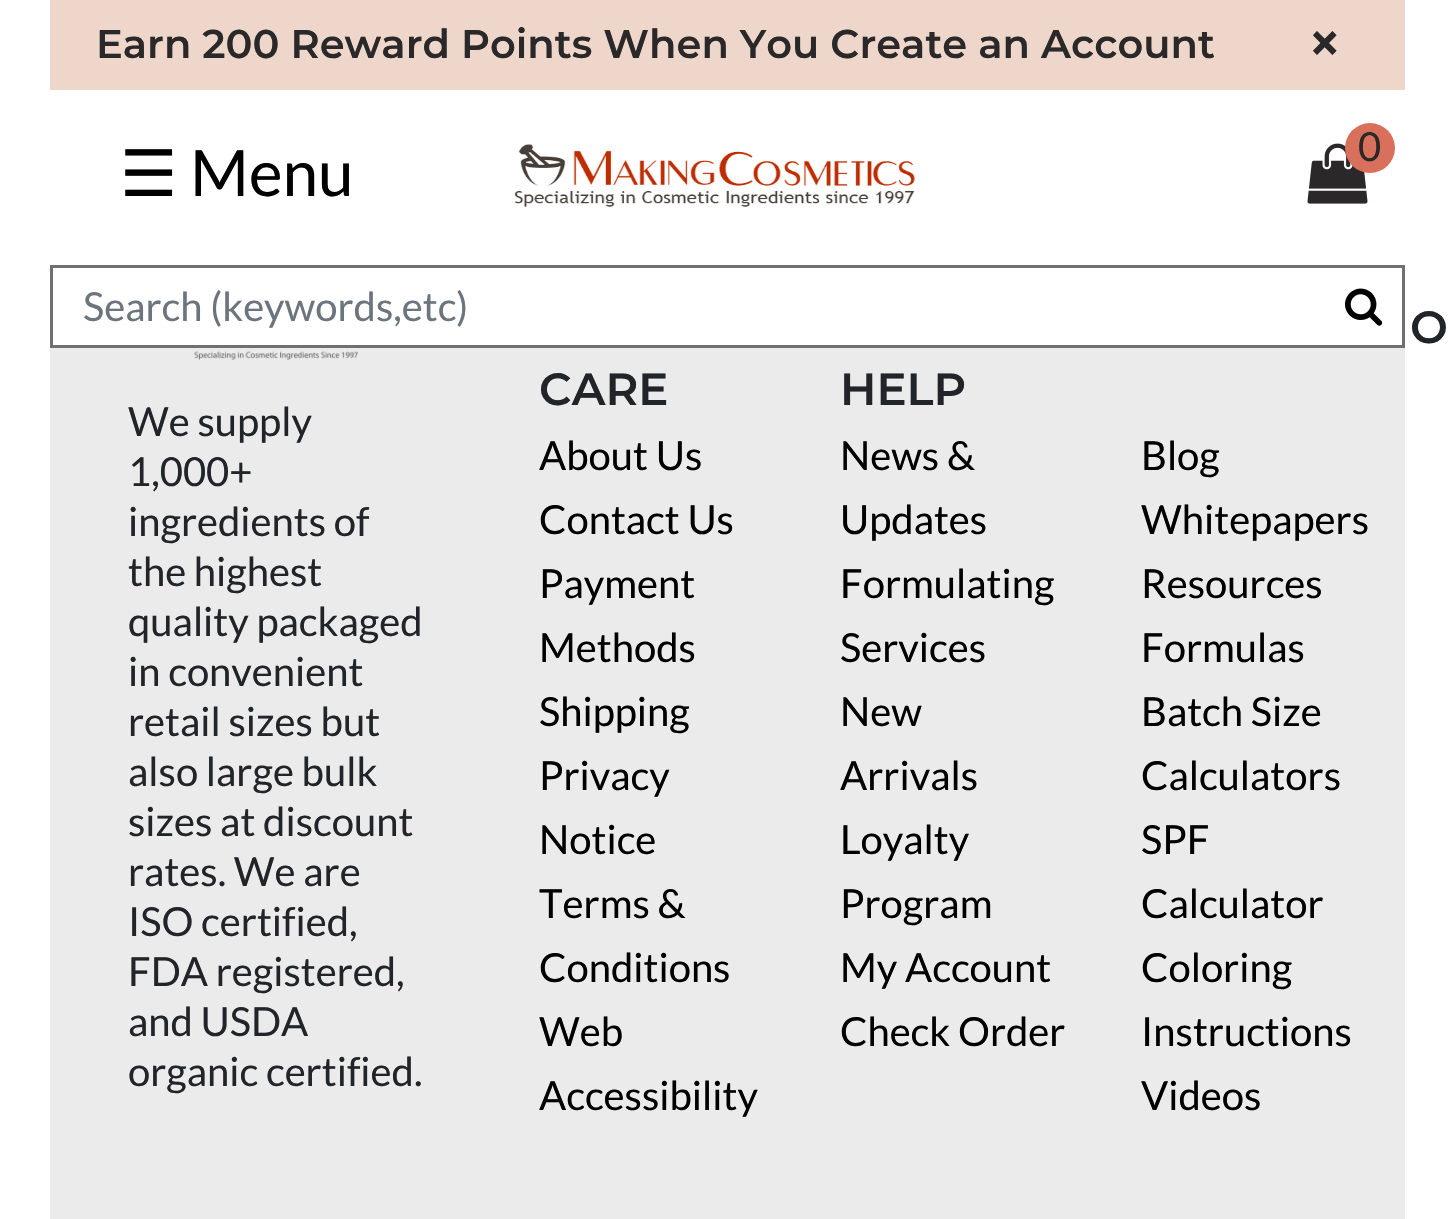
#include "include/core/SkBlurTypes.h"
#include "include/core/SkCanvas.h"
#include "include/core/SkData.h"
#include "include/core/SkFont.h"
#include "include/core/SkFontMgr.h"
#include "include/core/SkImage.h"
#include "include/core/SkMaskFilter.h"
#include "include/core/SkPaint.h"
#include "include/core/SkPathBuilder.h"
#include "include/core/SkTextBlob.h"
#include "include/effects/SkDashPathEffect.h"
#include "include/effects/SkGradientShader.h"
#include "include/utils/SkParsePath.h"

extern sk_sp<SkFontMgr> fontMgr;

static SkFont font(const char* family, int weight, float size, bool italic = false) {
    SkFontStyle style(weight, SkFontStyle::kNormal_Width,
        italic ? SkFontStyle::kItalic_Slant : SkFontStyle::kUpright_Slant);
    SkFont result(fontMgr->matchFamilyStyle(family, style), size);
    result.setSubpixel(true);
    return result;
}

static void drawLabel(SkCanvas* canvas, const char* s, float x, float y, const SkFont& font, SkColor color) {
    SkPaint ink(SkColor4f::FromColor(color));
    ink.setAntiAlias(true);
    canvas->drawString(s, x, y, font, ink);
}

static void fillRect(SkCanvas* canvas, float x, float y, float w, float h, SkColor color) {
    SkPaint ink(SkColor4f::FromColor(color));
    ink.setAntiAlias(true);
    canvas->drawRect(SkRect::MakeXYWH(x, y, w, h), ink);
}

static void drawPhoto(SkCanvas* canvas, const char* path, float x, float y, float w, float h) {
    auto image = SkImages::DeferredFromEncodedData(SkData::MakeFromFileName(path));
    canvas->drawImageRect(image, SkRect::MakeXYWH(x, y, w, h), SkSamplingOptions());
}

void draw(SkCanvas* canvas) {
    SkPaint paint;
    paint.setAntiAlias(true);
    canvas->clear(0xFFFFFFFF);
    fillRect(canvas, 50, 0, 1355, 90, 0xFFEED7CA);
    SkFont font1 = font("Montserrat", 600, 40);
    drawLabel(canvas, "Earn 200 Reward Points When You Create an Account", 96, 58, font1, 0xFF2A2829);
    SkFont font2 = font("Montserrat", 600, 60);
    drawLabel(canvas, "×", 1307, 64, font2, 0xFF2A2829);
    SkFont font3 = font("DejaVu Sans", 400, 64);
    drawLabel(canvas, "☰", 120, 196, font3, 0xFF000000);
    SkFont font4 = font("Lato", 400, 64);
    drawLabel(canvas, "Menu", 190, 196, font4, 0xFF000000);
    drawPhoto(canvas, "assets/img1.png", 1307, 143, 61, 61);
    paint.setColor(0xFFD8705C);
    canvas->drawCircle(1370, 148, 25, paint);
    SkFont font5 = font("Lato", 400, 40);
    drawLabel(canvas, "0", 1358, 161, font5, 0xFF2A2829);
    drawPhoto(canvas, "assets/img2.png", 514, 144, 401, 63);
    paint.setStroke(true);
    paint.setStrokeWidth(3);
    paint.setColor(0xFF707070);
    canvas->drawRect(SkRect::MakeXYWH(51.5f, 266.5f, 1352, 80), paint);
    drawLabel(canvas, "Search (keywords,etc)", 83, 321, font5, 0xFF6C757D);
    drawPhoto(canvas, "assets/img3.png", 1345, 288, 38, 38);
    fillRect(canvas, 50, 348, 1355, 871, 0xFFEBEBEB);
    drawPhoto(canvas, "assets/img4.png", 194, 351, 164, 9);
    drawLabel(canvas, "We supply", 128, 436, font5, 0xFF212529);
    drawLabel(canvas, "1,000+", 128, 486, font5, 0xFF212529);
    drawLabel(canvas, "ingredients of", 128, 536, font5, 0xFF212529);
    drawLabel(canvas, "the highest", 128, 586, font5, 0xFF212529);
    drawLabel(canvas, "quality packaged", 128, 636, font5, 0xFF212529);
    drawLabel(canvas, "in convenient", 128, 686, font5, 0xFF212529);
    drawLabel(canvas, "retail sizes but", 128, 736, font5, 0xFF212529);
    drawLabel(canvas, "also large bulk", 128, 786, font5, 0xFF212529);
    drawLabel(canvas, "sizes at discount", 128, 836, font5, 0xFF212529);
    drawLabel(canvas, "rates. We are", 128, 886, font5, 0xFF212529);
    drawLabel(canvas, "ISO certified,", 128, 936, font5, 0xFF212529);
    drawLabel(canvas, "FDA registered,", 128, 986, font5, 0xFF212529);
    drawLabel(canvas, "and USDA", 128, 1036, font5, 0xFF212529);
    drawLabel(canvas, "organic certified.", 128, 1086, font5, 0xFF212529);
    SkFont font6 = font("Montserrat", 600, 45);
    drawLabel(canvas, "CARE", 539, 405, font6, 0xFF212529);
    drawLabel(canvas, "About Us", 539, 470, font5, 0xFF000000);
    drawLabel(canvas, "Contact Us", 539, 534, font5, 0xFF000000);
    drawLabel(canvas, "Payment", 539, 598, font5, 0xFF000000);
    drawLabel(canvas, "Methods", 539, 662, font5, 0xFF000000);
    drawLabel(canvas, "Shipping", 539, 726, font5, 0xFF000000);
    drawLabel(canvas, "Privacy", 539, 790, font5, 0xFF000000);
    drawLabel(canvas, "Notice", 539, 854, font5, 0xFF000000);
    drawLabel(canvas, "Terms &", 539, 918, font5, 0xFF000000);
    drawLabel(canvas, "Conditions", 539, 982, font5, 0xFF000000);
    drawLabel(canvas, "Web", 539, 1046, font5, 0xFF000000);
    drawLabel(canvas, "Accessibility", 539, 1110, font5, 0xFF000000);
    drawLabel(canvas, "HELP", 840, 405, font6, 0xFF212529);
    drawLabel(canvas, "News &", 840, 470, font5, 0xFF000000);
    drawLabel(canvas, "Updates", 840, 534, font5, 0xFF000000);
    drawLabel(canvas, "Formulating", 840, 598, font5, 0xFF000000);
    drawLabel(canvas, "Services", 840, 662, font5, 0xFF000000);
    drawLabel(canvas, "New", 840, 726, font5, 0xFF000000);
    drawLabel(canvas, "Arrivals", 840, 790, font5, 0xFF000000);
    drawLabel(canvas, "Loyalty", 840, 854, font5, 0xFF000000);
    drawLabel(canvas, "Program", 840, 918, font5, 0xFF000000);
    drawLabel(canvas, "My Account", 840, 982, font5, 0xFF000000);
    drawLabel(canvas, "Check Order", 840, 1046, font5, 0xFF000000);
    drawLabel(canvas, "O", 1410, 343, font6, 0xFF212529);
    drawLabel(canvas, "Blog", 1141, 470, font5, 0xFF000000);
    drawLabel(canvas, "Whitepapers", 1141, 534, font5, 0xFF000000);
    drawLabel(canvas, "Resources", 1141, 598, font5, 0xFF000000);
    drawLabel(canvas, "Formulas", 1141, 662, font5, 0xFF000000);
    drawLabel(canvas, "Batch Size", 1141, 726, font5, 0xFF000000);
    drawLabel(canvas, "Calculators", 1141, 790, font5, 0xFF000000);
    drawLabel(canvas, "SPF", 1141, 854, font5, 0xFF000000);
    drawLabel(canvas, "Calculator", 1141, 918, font5, 0xFF000000);
    drawLabel(canvas, "Coloring", 1141, 982, font5, 0xFF000000);
    drawLabel(canvas, "Instructions", 1141, 1046, font5, 0xFF000000);
    drawLabel(canvas, "Videos", 1141, 1110, font5, 0xFF000000);
}
